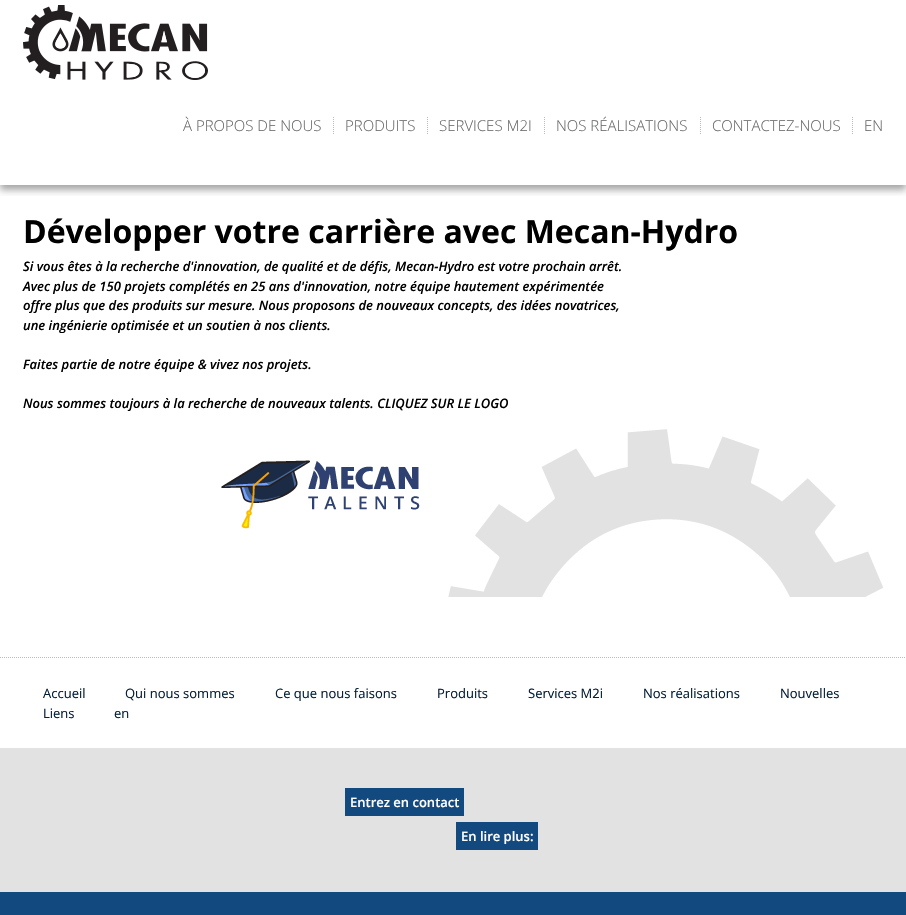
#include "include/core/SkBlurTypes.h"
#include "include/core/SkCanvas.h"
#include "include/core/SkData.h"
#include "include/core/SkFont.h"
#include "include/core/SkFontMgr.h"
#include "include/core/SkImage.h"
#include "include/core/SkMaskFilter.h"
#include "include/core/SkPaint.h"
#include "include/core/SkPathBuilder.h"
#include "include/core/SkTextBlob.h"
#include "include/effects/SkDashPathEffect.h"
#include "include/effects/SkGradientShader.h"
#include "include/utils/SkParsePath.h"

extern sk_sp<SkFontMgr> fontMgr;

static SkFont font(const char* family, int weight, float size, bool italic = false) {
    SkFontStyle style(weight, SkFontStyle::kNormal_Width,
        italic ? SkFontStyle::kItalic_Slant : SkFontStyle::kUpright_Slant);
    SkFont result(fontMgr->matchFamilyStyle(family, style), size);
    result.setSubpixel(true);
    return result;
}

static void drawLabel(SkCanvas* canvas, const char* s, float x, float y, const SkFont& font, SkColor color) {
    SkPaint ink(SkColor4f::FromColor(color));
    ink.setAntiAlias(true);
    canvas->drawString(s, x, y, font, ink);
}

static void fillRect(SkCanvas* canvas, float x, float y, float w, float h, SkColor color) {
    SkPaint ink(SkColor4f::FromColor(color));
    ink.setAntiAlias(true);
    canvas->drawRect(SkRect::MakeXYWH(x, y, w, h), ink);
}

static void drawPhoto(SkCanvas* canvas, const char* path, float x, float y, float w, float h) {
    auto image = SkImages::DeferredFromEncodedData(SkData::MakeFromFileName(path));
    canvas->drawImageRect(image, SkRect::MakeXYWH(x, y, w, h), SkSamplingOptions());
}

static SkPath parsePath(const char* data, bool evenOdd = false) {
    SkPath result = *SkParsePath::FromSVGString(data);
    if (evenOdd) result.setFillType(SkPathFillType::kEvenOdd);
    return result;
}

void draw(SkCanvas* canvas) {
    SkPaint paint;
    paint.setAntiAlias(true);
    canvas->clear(0xFFFFFFFF);
    canvas->save();
    canvas->clipRect(SkRect::MakeXYWH(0, 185, 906, 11));
    paint.setColor(0x59000000);
    paint.setMaskFilter(SkMaskFilter::MakeBlur(kNormal_SkBlurStyle, 3.5f));
    canvas->drawRect(SkRect::MakeXYWH(0, -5, 906, 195), paint);
    paint.setMaskFilter(nullptr);
    canvas->restore();
    drawPhoto(canvas, "assets/img1.png", 23, 5, 185, 75);
    SkFont font1 = font("Open Sans", 300, 15);
    drawLabel(canvas, "À PROPOS DE NOUS", 183, 131, font1, 0xFF676869);
    drawPhoto(canvas, "assets/img2.png", 333, 117, 1, 17);
    drawLabel(canvas, "PRODUITS", 345, 131, font1, 0xFF676869);
    drawPhoto(canvas, "assets/img2.png", 427, 117, 1, 17);
    drawLabel(canvas, "SERVICES M2I", 439, 131, font1, 0xFF676869);
    drawPhoto(canvas, "assets/img2.png", 544, 117, 1, 17);
    drawLabel(canvas, "NOS RÉALISATIONS", 556, 131, font1, 0xFF676869);
    drawPhoto(canvas, "assets/img2.png", 700, 117, 1, 17);
    drawLabel(canvas, "CONTACTEZ-NOUS", 712, 131, font1, 0xFF676869);
    drawPhoto(canvas, "assets/img2.png", 852, 117, 1, 17);
    drawLabel(canvas, "EN", 864, 131, font1, 0xFF676869);
    drawPhoto(canvas, "assets/img3.png", 448, 429, 435, 168);
    SkFont font2 = font("Open Sans", 700, 32);
    drawLabel(canvas, "Développer votre carrière avec Mecan-Hydro", 23, 243, font2, 0xFF000000);
    SkFont font3 = font("Open Sans", 600, 13, true);
    drawLabel(canvas, "Si vous êtes à la recherche d'innovation, de qualité et de défis, Mecan-Hydro est votre prochain arrêt.", 23, 271, font3, 0xFF000000);
    drawLabel(canvas, "Avec plus de 150 projets complétés en 25 ans d'innovation, notre équipe hautement expérimentée", 23, 291, font3, 0xFF000000);
    drawLabel(canvas, "offre plus que des produits sur mesure. Nous proposons de nouveaux concepts, des idées novatrices,", 23, 310, font3, 0xFF000000);
    drawLabel(canvas, "une ingénierie optimisée et un soutien à nos clients.", 23, 330, font3, 0xFF000000);
    drawLabel(canvas, "Faites partie de notre équipe & vivez nos projets.", 23, 369, font3, 0xFF000000);
    drawLabel(canvas, "Nous sommes toujours à la recherche de nouveaux talents. CLIQUEZ SUR LE LOGO", 23, 408, font3, 0xFF000000);
    drawPhoto(canvas, "assets/img4.png", 221, 460, 199, 69);
    paint.setStroke(true);
    paint.setStrokeWidth(1);
    paint.setColor(0xFFBBBBBB);
    paint.setPathEffect(SkDashPathEffect::Make({{1, 1}}, 0));
    canvas->drawPath(parsePath("M0 657.5H906"), paint);
    paint.setPathEffect(nullptr);
    SkFont font4 = font("Open Sans", 400, 13);
    drawLabel(canvas, "Accueil", 43, 698, font4, 0xFF041F38);
    drawLabel(canvas, "Qui nous sommes", 125, 698, font4, 0xFF041F38);
    drawLabel(canvas, "Ce que nous faisons", 275, 698, font4, 0xFF041F38);
    drawLabel(canvas, "Produits", 437, 698, font4, 0xFF041F38);
    drawLabel(canvas, "Services M2i", 528, 698, font4, 0xFF041F38);
    drawLabel(canvas, "Nos réalisations", 643, 698, font4, 0xFF041F38);
    drawLabel(canvas, "Nouvelles", 780, 698, font4, 0xFF041F38);
    drawLabel(canvas, "Liens", 43, 718, font4, 0xFF041F38);
    drawLabel(canvas, "en", 114, 718, font4, 0xFF041F38);
    fillRect(canvas, 0, 748, 906, 144, 0xFFE2E2E2);
    fillRect(canvas, 345, 788, 119, 28, 0xFF12497F);
    SkFont font5 = font("Open Sans", 600, 13);
    drawLabel(canvas, "Entrez en contact", 350, 807, font5, 0xFFFFFFFF);
    fillRect(canvas, 456, 822, 82, 28, 0xFF12497F);
    drawLabel(canvas, "En lire plus:", 461, 841, font5, 0xFFFFFFFF);
    fillRect(canvas, 0, 892, 906, 23, 0xFF12497F);
}
